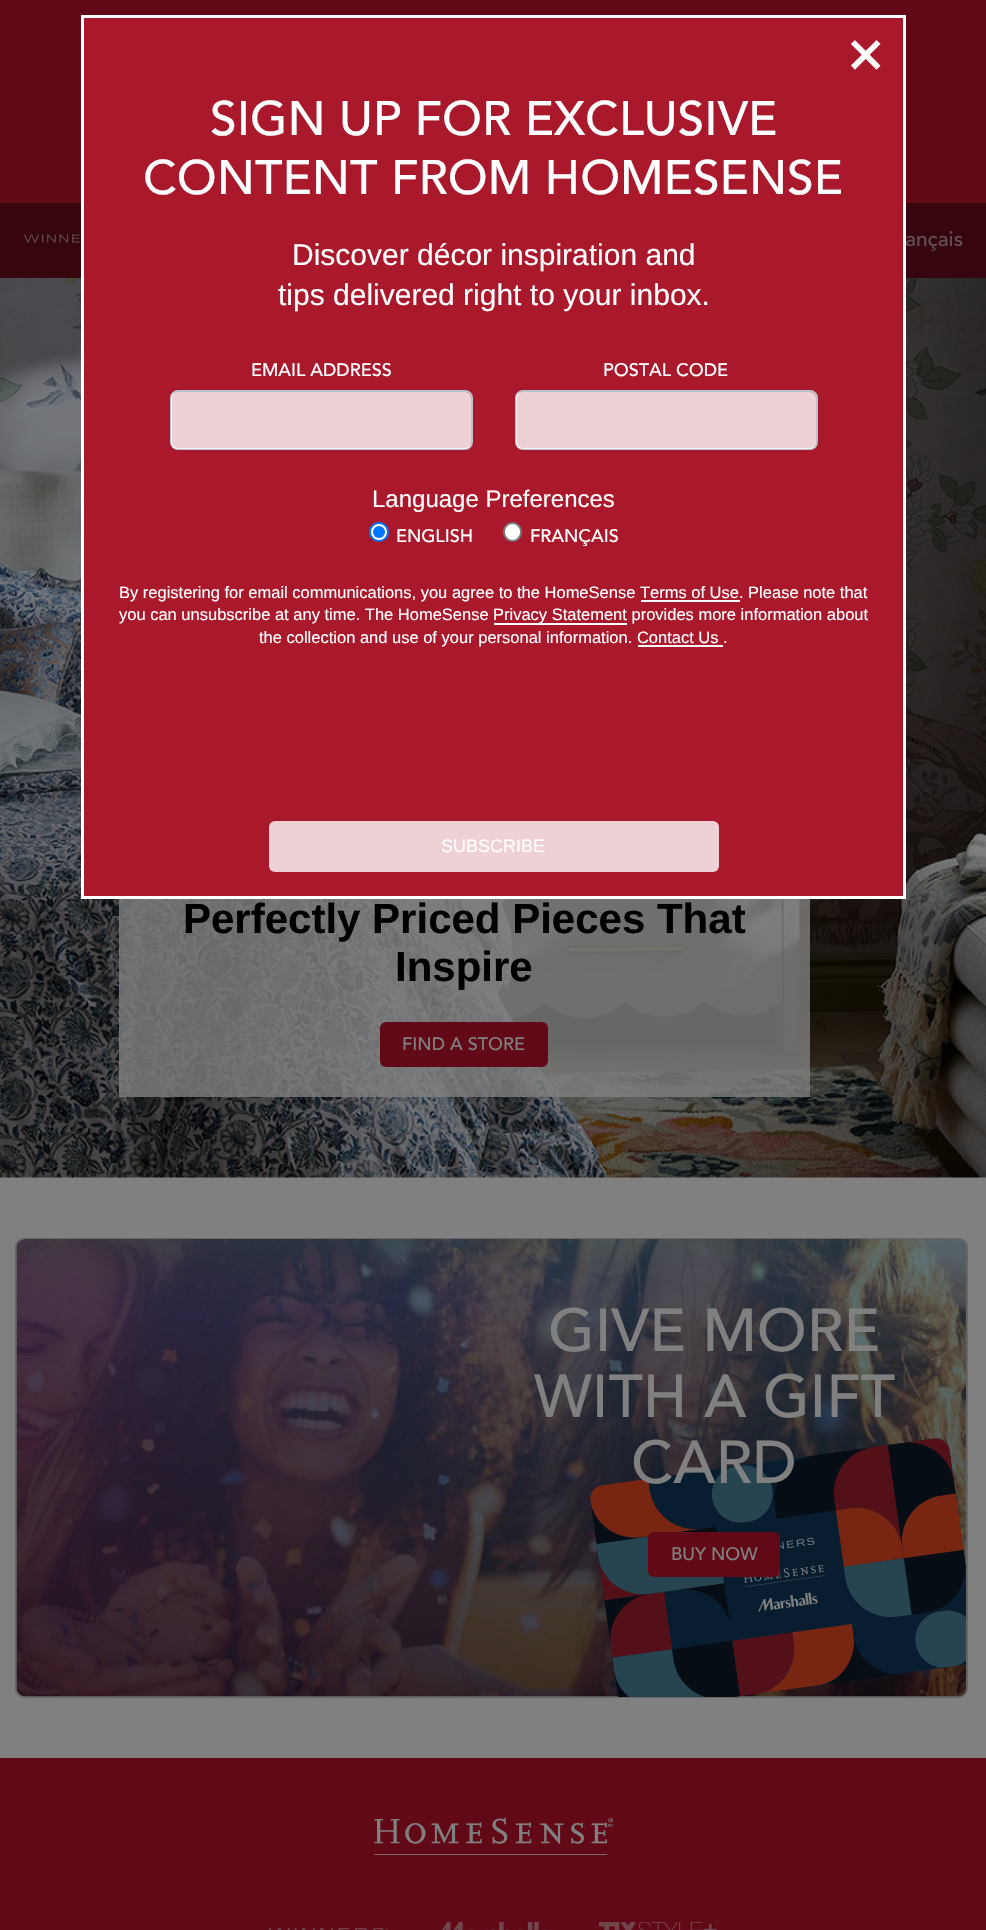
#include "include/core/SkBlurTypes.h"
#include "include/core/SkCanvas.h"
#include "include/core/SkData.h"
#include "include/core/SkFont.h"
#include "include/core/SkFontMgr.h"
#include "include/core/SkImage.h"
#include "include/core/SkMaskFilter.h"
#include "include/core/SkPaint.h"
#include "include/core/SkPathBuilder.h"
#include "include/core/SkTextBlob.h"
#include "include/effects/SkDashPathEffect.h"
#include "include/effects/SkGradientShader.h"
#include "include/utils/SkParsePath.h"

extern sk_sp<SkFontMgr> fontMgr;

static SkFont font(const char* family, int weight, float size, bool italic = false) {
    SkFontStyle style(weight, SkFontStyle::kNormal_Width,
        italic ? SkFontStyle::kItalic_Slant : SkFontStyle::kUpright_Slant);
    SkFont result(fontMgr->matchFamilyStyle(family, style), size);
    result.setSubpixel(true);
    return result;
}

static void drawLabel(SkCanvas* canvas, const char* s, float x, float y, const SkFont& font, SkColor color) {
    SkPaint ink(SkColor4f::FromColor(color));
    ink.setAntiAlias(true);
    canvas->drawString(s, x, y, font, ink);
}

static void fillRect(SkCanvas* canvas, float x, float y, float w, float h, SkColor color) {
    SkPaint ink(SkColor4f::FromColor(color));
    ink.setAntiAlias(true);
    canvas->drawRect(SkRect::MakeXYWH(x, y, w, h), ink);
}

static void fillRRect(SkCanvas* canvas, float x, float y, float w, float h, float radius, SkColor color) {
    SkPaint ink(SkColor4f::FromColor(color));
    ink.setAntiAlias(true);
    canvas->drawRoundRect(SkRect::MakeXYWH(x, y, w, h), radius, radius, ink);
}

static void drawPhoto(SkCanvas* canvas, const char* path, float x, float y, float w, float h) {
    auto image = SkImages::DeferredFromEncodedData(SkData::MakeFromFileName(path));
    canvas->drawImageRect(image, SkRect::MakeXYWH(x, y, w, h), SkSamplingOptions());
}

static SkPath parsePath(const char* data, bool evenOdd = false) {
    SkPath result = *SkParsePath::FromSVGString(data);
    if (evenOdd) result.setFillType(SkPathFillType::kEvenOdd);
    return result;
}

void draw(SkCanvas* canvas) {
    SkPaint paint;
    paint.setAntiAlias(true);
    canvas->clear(0xFF808080);
    fillRect(canvas, 0, 0, 986, 203, 0xFF620918);
    fillRect(canvas, 0, 203, 986, 75, 0xFF36050D);
    SkFont font1 = font("Avenir", 500, 21);
    drawLabel(canvas, "ançais", 905, 246, font1, 0xFF624F52);
    drawPhoto(canvas, "assets/img2.png", 0, 278, 986, 900);
    paint.setColor(0xFFAA182C);
    canvas->drawRect(SkRect::MakeXYWH(82.5f, 16.5f, 822, 881), paint);
    paint.setStroke(true);
    paint.setStrokeWidth(3);
    paint.setColor(0xFFFFFFFF);
    canvas->drawRect(SkRect::MakeXYWH(82.5f, 16.5f, 822, 881), paint);
    SkFont font2 = font("Avenir", 700, 51);
    drawLabel(canvas, "×", 848, 71, font2, 0xFFFFFFFF);
    SkFont font3 = font("Avenir", 500, 48);
    drawLabel(canvas, "SIGN UP FOR EXCLUSIVE", 210, 135, font3, 0xFFFFFFFF);
    drawLabel(canvas, "CONTENT FROM HOMESENSE", 143, 194, font3, 0xFFFFFFFF);
    SkFont font4 = font("Liberation Sans", 400, 30);
    drawLabel(canvas, "Discover décor inspiration and", 292, 265, font4, 0xFFFFFFFF);
    drawLabel(canvas, "tips delivered right to your inbox.", 278, 305, font4, 0xFFFFFFFF);
    SkFont font5 = font("Avenir", 500, 18);
    drawLabel(canvas, "EMAIL ADDRESS", 251, 376, font5, 0xFFFFFFFF);
    paint.setStrokeWidth(2);
    paint.setColor(0xFFB8C2CC);
    canvas->drawRoundRect(SkRect::MakeXYWH(171, 391, 301, 58), 7, 7, paint);
    fillRRect(canvas, 171, 392, 300, 57, 6, 0xCCFFFFFF);
    drawLabel(canvas, "POSTAL CODE", 603, 376, font5, 0xFFFFFFFF);
    canvas->drawRoundRect(SkRect::MakeXYWH(516, 391, 301, 58), 7, 7, paint);
    fillRRect(canvas, 516, 392, 300, 57, 6, 0xCCFFFFFF);
    SkFont font6 = font("Liberation Sans", 400, 24);
    drawLabel(canvas, "Language Preferences", 372, 507, font6, 0xFFFFFFFF);
    paint.setStroke(false);
    paint.setColor(0xFFFFFFFF);
    canvas->drawCircle(379, 532, 9, paint);
    paint.setStroke(true);
    paint.setColor(0xFF0075FF);
    canvas->drawCircle(379, 532, 9, paint);
    paint.setStroke(false);
    canvas->drawCircle(379, 532, 6, paint);
    drawLabel(canvas, "ENGLISH", 396, 542, font5, 0xFFFFFFFF);
    paint.setColor(0xFFFFFFFF);
    canvas->drawRoundRect(SkRect::MakeXYWH(504, 523, 17, 18), 8.5f, 8.5f, paint);
    paint.setStroke(true);
    paint.setColor(0xFF767676);
    canvas->drawRoundRect(SkRect::MakeXYWH(504, 523, 17, 18), 8.5f, 8.5f, paint);
    drawLabel(canvas, "FRANÇAIS", 530, 542, font5, 0xFFFFFFFF);
    SkFont font7 = font("Liberation Sans", 400, 16.5f);
    drawLabel(canvas, "By registering for email communications, you agree to the HomeSense Terms of Use. Please note that", 119, 598, font7, 0xFFFFFFFF);
    fillRect(canvas, 641, 600, 99, 2, 0xFFFFFFFF);
    drawLabel(canvas, "you can unsubscribe at any time. The HomeSense", 119, 620, font7, 0xFFFFFFFF);
    fillRect(canvas, 494, 623, 133, 2, 0xFFFFFFFF);
    drawLabel(canvas, "Privacy Statement provides more information about", 493, 620, font7, 0xFFFFFFFF);
    drawLabel(canvas, "the collection and use of your personal information. Contact Us .", 259, 643, font7, 0xFFFFFFFF);
    fillRect(canvas, 638, 645, 85, 2, 0xFFFFFFFF);
    fillRRect(canvas, 269, 821, 450, 51, 6, 0xFFEED1D5);
    SkFont font8 = font("Liberation Sans", 400, 18);
    drawLabel(canvas, "SUBSCRIBE", 441, 852, font8, 0xFFFFFFFF);
    drawPhoto(canvas, "assets/img1.png", 24, 234, 56, 9);
    fillRect(canvas, 119, 899, 691, 198, 0xCC808080);
    SkFont font9 = font("Liberation Sans", 700, 42);
    drawLabel(canvas, "Perfectly Priced Pieces That", 183, 933, font9, 0xFF000000);
    drawLabel(canvas, "Inspire", 395, 981, font9, 0xFF000000);
    fillRRect(canvas, 380, 1022, 168, 45, 6, 0xFF620918);
    drawLabel(canvas, "FIND A STORE", 402, 1050, font5, 0xFF808080);
    paint.setColor(0xFF666666);
    canvas->drawRoundRect(SkRect::MakeXYWH(16, 1239, 951, 458), 8, 8, paint);
    canvas->save();
    canvas->clipPath(parsePath("M25 1239H958C962.5 1239 966 1242.5 966 1247V1689C966 1693.5 962.5 1697 958 1697H25C20.5 1697 17 1693.5 17 1689V1247C17 1242.5 20.5 1239 25 1239Z"), true);
    paint.setStroke(false);
    paint.setColor(0xFF5F726C);
    canvas->drawPath(parsePath("M26 1239H958C962.5 1239 966 1242.5 966 1247V1689C966 1693.5 962.5 1697 958 1697H26C21 1697 17 1693 17 1688V1248C17 1243 21 1239 26 1239Z"), paint);
    canvas->restore();
    drawPhoto(canvas, "assets/img3.png", 16, 1239, 950, 458);
    SkFont font10 = font("Avenir", 500, 60);
    drawLabel(canvas, "GIVE MORE", 548, 1351, font10, 0xFF808080);
    drawLabel(canvas, "WITH A GIFT", 534, 1417, font10, 0xFF808080);
    drawPhoto(canvas, "assets/img4.png", 590, 1438, 376, 259);
    drawLabel(canvas, "CARD", 631, 1483, font10, 0xFF808080);
    fillRRect(canvas, 648, 1532, 132, 45, 6, 0xFF620918);
    drawLabel(canvas, "BUY NOW", 671, 1560, font5, 0xFF808080);
    fillRect(canvas, 0, 1758, 986, 172, 0xFF620918);
    drawPhoto(canvas, "assets/img5.png", 374, 1818, 239, 37);
    drawPhoto(canvas, "assets/img6.png", 269, 1928, 119, 2);
    drawPhoto(canvas, "assets/img7.png", 442, 1922, 106, 8);
    drawPhoto(canvas, "assets/img8.png", 599, 1922, 119, 8);
}
